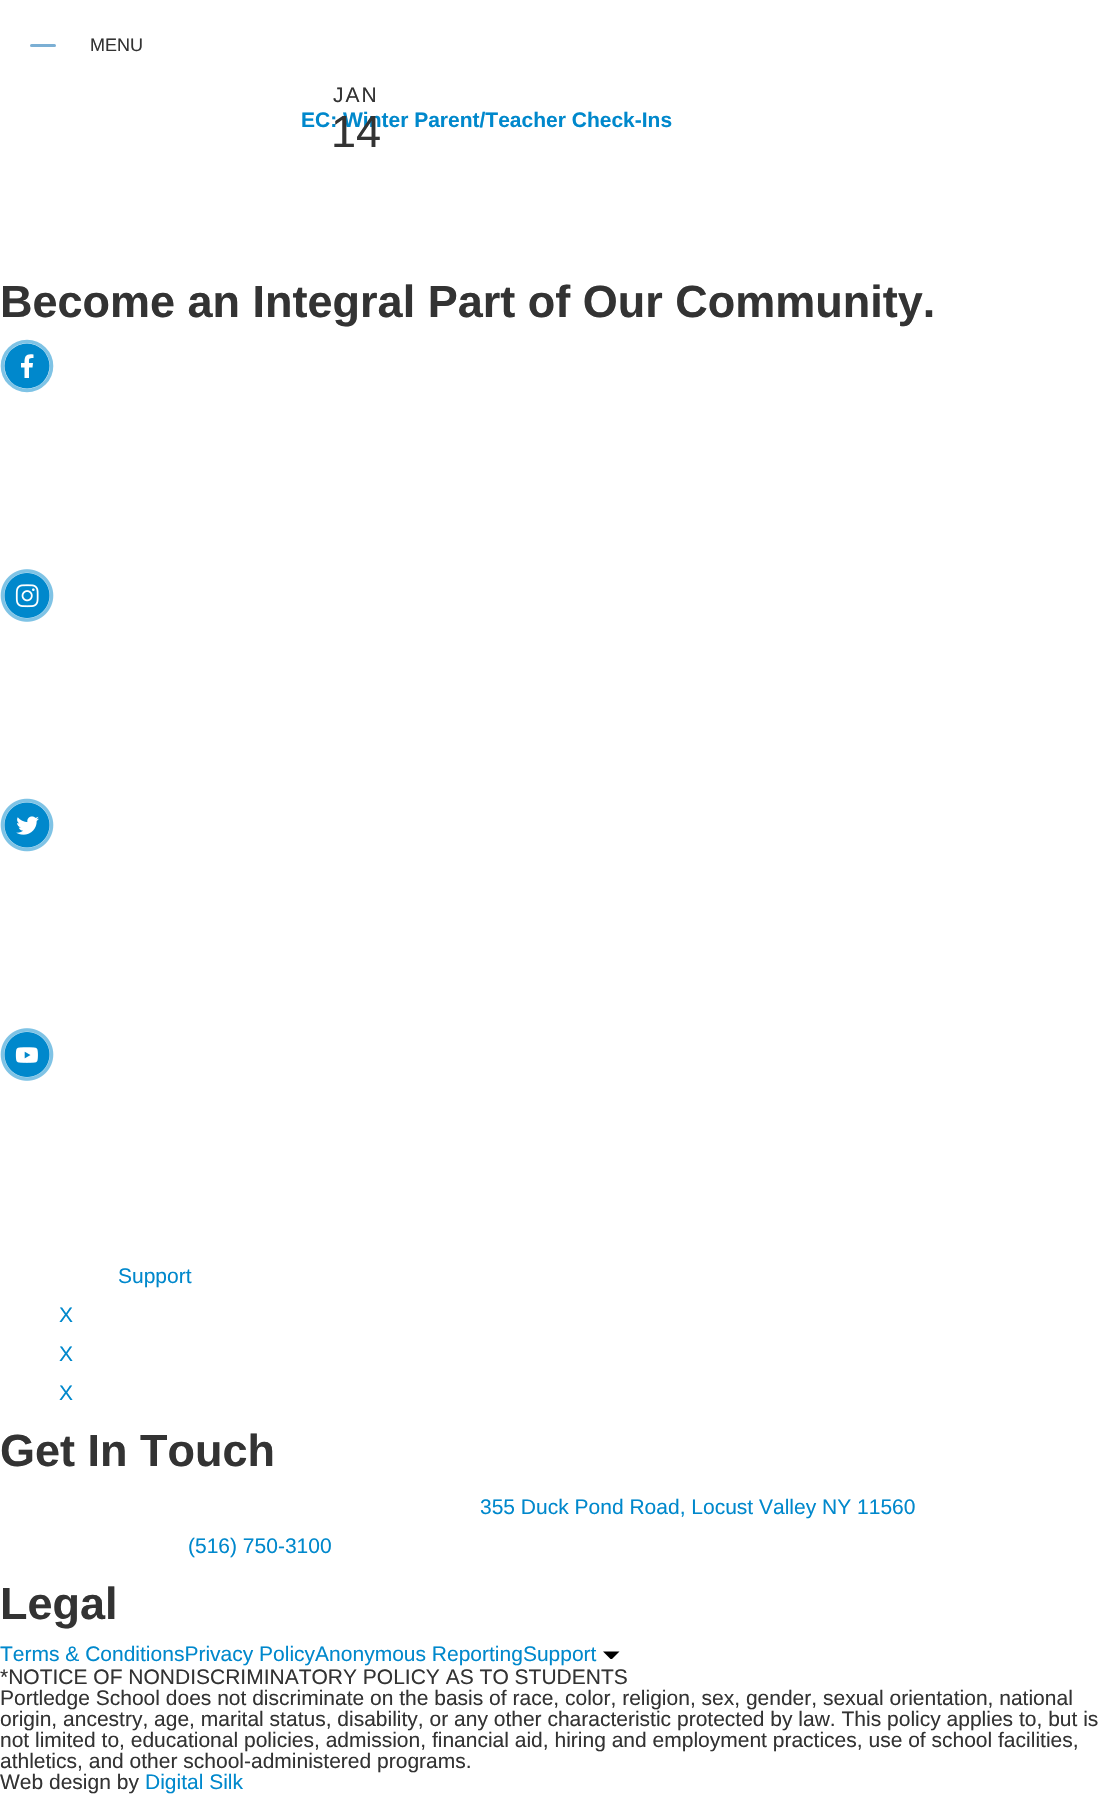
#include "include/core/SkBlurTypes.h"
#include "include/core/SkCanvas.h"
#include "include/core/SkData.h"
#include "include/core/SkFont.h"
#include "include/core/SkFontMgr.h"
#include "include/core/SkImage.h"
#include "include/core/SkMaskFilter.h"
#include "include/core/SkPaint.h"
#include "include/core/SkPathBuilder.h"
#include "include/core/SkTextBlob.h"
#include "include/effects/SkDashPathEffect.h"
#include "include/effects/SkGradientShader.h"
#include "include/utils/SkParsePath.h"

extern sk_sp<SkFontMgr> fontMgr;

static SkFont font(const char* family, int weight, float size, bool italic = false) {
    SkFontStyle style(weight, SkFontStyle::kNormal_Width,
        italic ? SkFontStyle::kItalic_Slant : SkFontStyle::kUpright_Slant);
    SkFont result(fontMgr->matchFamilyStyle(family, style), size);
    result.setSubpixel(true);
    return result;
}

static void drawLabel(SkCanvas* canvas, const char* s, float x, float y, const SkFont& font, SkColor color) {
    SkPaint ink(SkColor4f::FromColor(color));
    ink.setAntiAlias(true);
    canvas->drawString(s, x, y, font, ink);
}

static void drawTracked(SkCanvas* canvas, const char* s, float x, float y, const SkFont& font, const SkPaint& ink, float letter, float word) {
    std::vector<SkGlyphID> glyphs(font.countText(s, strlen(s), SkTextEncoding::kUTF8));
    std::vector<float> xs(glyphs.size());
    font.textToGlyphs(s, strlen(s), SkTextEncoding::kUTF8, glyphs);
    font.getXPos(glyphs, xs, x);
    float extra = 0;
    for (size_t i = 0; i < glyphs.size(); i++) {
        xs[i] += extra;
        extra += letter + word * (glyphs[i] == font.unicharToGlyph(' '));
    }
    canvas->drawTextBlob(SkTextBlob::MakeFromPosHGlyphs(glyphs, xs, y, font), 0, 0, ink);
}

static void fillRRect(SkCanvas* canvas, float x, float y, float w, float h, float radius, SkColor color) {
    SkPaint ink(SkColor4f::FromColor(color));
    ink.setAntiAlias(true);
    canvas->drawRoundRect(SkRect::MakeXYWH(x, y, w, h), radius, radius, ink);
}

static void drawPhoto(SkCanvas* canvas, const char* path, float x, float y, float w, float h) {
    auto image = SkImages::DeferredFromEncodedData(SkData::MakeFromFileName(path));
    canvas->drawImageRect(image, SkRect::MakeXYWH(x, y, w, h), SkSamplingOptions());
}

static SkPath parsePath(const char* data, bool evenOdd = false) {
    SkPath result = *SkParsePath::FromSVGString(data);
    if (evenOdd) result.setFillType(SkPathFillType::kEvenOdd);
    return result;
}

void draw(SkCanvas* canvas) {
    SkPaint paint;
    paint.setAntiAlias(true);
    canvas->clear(0xFFFFFFFF);
    fillRRect(canvas, 30, 44, 26, 3, 1.5f, 0xFF7BAFD4);
    SkFont font1 = font("Liberation Sans", 400, 18);
    drawLabel(canvas, "MENU", 90, 51, font1, 0xFF333333);
    SkFont font2 = font("Liberation Sans", 400, 21);
    paint.setColor(0xFF333333);
    drawTracked(canvas, "JAN", 333, 102, font2, paint, 2, 0);
    SkFont font3 = font("Liberation Sans", 700, 21);
    drawLabel(canvas, "EC: Winter Parent/Teacher Check-Ins", 301, 127, font3, 0xFF0088CC);
    SkFont font4 = font("Liberation Sans", 400, 45);
    drawLabel(canvas, "14", 331, 147, font4, 0xFF333333);
    SkFont font5 = font("Liberation Sans", 700, 45);
    drawLabel(canvas, "Become an Integral Part of Our Community.", 0, 317, font5, 0xFF333333);
    paint.setColor(0xFF0088CC);
    canvas->drawCircle(27, 366, 22.5f, paint);
    paint.setStroke(true);
    paint.setStrokeWidth(3.6f);
    paint.setColor(0x800088CC);
    canvas->drawCircle(27, 366, 24.5f, paint);
    paint.setStroke(false);
    paint.setColor(0xFFFFFFFF);
    canvas->drawPath(parsePath("M29 378V367.5H32.5L33 363H29C29 358.5 28.5 358 33.5 358V354.5C26 353.5 24.5 356 24.5 363H21V367.5H24.5V378Z"), paint);
    drawPhoto(canvas, "assets/img1.png", 0, 569, 54, 53);
    drawPhoto(canvas, "assets/img2.png", 0, 798, 54, 54);
    drawPhoto(canvas, "assets/img3.png", 0, 1028, 54, 53);
    drawLabel(canvas, "Support", 118, 1283, font2, 0xFF0088CC);
    drawLabel(canvas, "X", 59, 1322, font2, 0xFF0088CC);
    drawLabel(canvas, "X", 59, 1361, font2, 0xFF0088CC);
    drawLabel(canvas, "X", 59, 1400, font2, 0xFF0088CC);
    drawLabel(canvas, "Get In Touch", 0, 1466, font5, 0xFF333333);
    drawLabel(canvas, "355 Duck Pond Road, Locust Valley NY 11560", 480, 1514, font2, 0xFF0088CC);
    drawLabel(canvas, "(516) 750-3100", 188, 1553, font2, 0xFF0088CC);
    drawLabel(canvas, "Legal", 0, 1619, font5, 0xFF333333);
    drawLabel(canvas, "Terms & ConditionsPrivacy PolicyAnonymous ReportingSupport", 0, 1661, font2, 0xFF0088CC);
    paint.setColor(0xFF000000);
    canvas->drawPath(parsePath("M603 1651.5H619.5L612 1659H610.5Z"), paint);
    drawLabel(canvas, "*NOTICE OF NONDISCRIMINATORY POLICY AS TO STUDENTS", 0, 1684, font2, 0xFF333333);
    drawLabel(canvas, "Portledge School does not discriminate on the basis of race, color, religion, sex, gender, sexual orientation, national", 0, 1705, font2, 0xFF333333);
    drawLabel(canvas, "origin, ancestry, age, marital status, disability, or any other characteristic protected by law. This policy applies to, but is", 0, 1726, font2, 0xFF333333);
    drawLabel(canvas, "not limited to, educational policies, admission, financial aid, hiring and employment practices, use of school facilities,", 0, 1747, font2, 0xFF333333);
    drawLabel(canvas, "athletics, and other school-administered programs.", 0, 1768, font2, 0xFF333333);
    drawLabel(canvas, "Web design by", 0, 1789, font2, 0xFF333333);
    drawLabel(canvas, "Digital Silk", 145, 1789, font2, 0xFF0088CC);
}
